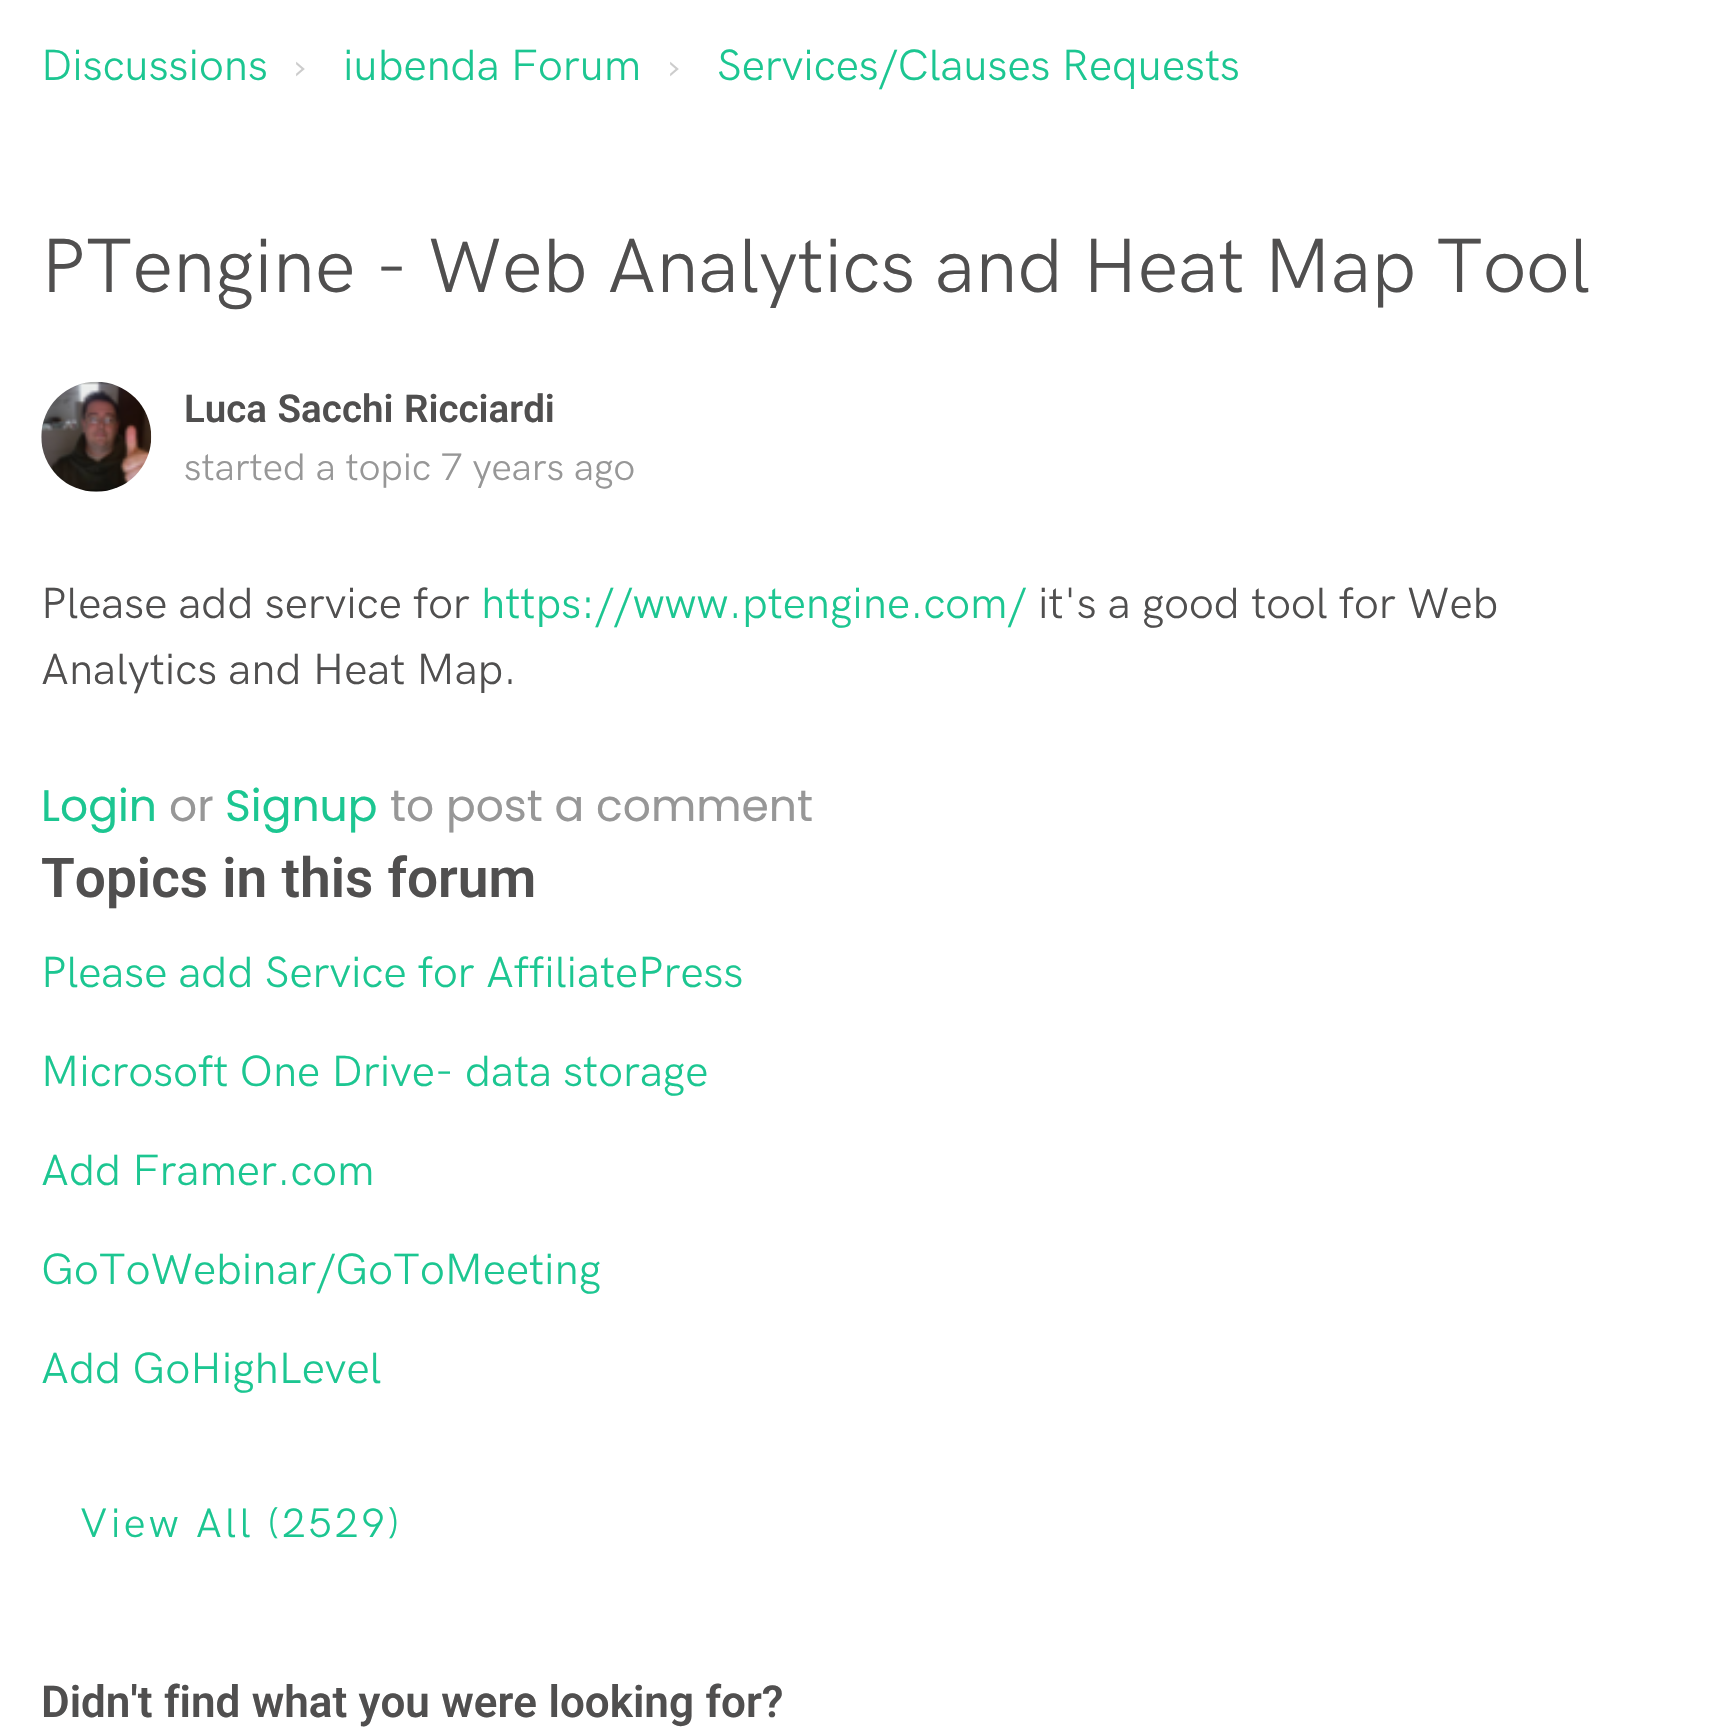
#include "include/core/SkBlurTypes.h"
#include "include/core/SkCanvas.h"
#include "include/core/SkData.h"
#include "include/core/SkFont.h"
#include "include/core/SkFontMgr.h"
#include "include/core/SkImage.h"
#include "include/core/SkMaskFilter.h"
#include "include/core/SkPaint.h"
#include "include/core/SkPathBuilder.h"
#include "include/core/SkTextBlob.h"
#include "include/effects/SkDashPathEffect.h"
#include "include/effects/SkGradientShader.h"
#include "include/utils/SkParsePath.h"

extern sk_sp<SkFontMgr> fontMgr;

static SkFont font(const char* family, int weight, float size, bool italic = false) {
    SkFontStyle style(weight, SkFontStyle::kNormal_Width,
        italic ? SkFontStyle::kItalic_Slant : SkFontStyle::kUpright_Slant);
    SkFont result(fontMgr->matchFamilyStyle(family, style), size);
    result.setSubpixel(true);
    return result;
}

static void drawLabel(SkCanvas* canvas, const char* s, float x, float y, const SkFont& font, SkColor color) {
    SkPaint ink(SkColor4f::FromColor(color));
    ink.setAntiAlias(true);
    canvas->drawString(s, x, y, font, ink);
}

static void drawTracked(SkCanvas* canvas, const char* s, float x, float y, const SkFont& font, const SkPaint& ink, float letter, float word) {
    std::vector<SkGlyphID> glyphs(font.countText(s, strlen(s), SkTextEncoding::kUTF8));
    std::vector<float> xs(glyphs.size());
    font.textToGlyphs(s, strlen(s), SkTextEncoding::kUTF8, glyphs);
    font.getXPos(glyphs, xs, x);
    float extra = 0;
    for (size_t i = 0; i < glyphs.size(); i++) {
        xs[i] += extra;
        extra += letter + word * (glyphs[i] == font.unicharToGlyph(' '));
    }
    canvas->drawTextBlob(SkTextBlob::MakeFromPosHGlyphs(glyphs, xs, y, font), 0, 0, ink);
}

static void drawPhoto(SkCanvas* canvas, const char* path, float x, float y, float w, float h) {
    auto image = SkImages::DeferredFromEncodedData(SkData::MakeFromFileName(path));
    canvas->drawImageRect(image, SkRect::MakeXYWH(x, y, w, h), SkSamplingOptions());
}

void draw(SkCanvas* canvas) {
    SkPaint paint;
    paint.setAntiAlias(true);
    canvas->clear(0xFFFFFFFF);
    SkFont font1 = font("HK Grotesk", 400, 44);
    drawLabel(canvas, "Discussions", 41, 80, font1, 0xFF1CC691);
    drawLabel(canvas, "›", 293, 80, font1, 0xFFCCCCCC);
    drawLabel(canvas, "iubenda Forum", 343, 80, font1, 0xFF1CC691);
    drawLabel(canvas, "›", 667, 80, font1, 0xFFCCCCCC);
    drawLabel(canvas, "Services/Clauses Requests", 717, 80, font1, 0xFF1CC691);
    SkFont font2 = font("HK Grotesk", 400, 77);
    drawLabel(canvas, "PTengine - Web Analytics and Heat Map Tool", 41, 292, font2, 0xFF504F4F);
    drawPhoto(canvas, "assets/img1.png", 41, 381, 111, 111);
    SkFont font3 = font("Roboto", 600, 38.5f);
    paint.setColor(0xFF504F4F);
    drawTracked(canvas, "Luca Sacchi Ricciardi", 184, 422, font3, paint, 0, 1);
    SkFont font4 = font("HK Grotesk", 400, 38.5f);
    drawLabel(canvas, "started a topic 7 years ago", 184, 480, font4, 0xFF979797);
    drawLabel(canvas, "Please add service for", 41, 618, font1, 0xFF504F4F);
    drawLabel(canvas, "https://www.ptengine.com/", 481, 618, font1, 0xFF1CC691);
    drawLabel(canvas, "it's a good tool for Web", 1038, 618, font1, 0xFF504F4F);
    drawLabel(canvas, "Analytics and Heat Map.", 41, 684, font1, 0xFF504F4F);
    SkFont font5 = font("Poppins", 400, 44);
    drawLabel(canvas, "Login", 41, 821, font5, 0xFF1CC691);
    drawLabel(canvas, "or", 169, 821, font5, 0xFF979797);
    drawLabel(canvas, "Signup", 225, 821, font5, 0xFF1CC691);
    drawLabel(canvas, "to post a comment", 390, 821, font5, 0xFF979797);
    SkFont font6 = font("Roboto", 600, 55);
    drawTracked(canvas, "Topics in this forum", 41, 897, font6, paint, 0, 0.5f);
    drawLabel(canvas, "Please add Service for AffiliatePress", 41, 987, font1, 0xFF1CC691);
    drawLabel(canvas, "Microsoft One Drive- data storage", 41, 1086, font1, 0xFF1CC691);
    drawLabel(canvas, "Add Framer.com", 41, 1185, font1, 0xFF1CC691);
    drawLabel(canvas, "GoToWebinar/GoToMeeting", 41, 1284, font1, 0xFF1CC691);
    drawLabel(canvas, "Add GoHighLevel", 41, 1383, font1, 0xFF1CC691);
    SkFont font7 = font("HK Grotesk", 400, 41.25f);
    paint.setColor(0xFF1CC691);
    drawTracked(canvas, "View All (2529)", 80, 1537, font7, paint, 3.25f, 0);
    SkFont font8 = font("Roboto", 600, 44);
    paint.setColor(0xFF504F4F);
    drawTracked(canvas, "Didn't find what you were looking for?", 41, 1717, font8, paint, 0, 0.5f);
}
